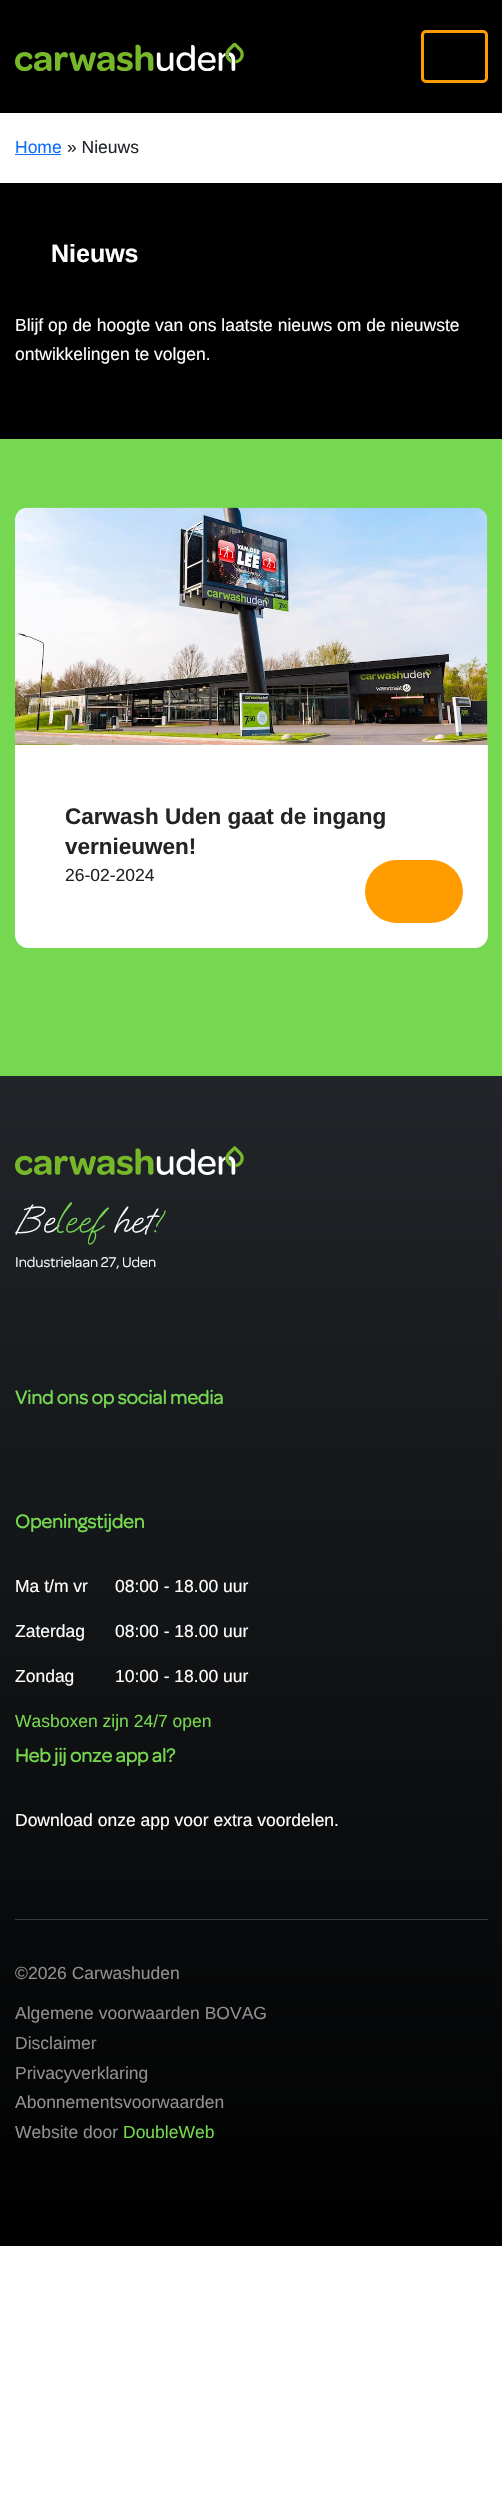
#include "include/core/SkBlurTypes.h"
#include "include/core/SkCanvas.h"
#include "include/core/SkData.h"
#include "include/core/SkFont.h"
#include "include/core/SkFontMgr.h"
#include "include/core/SkImage.h"
#include "include/core/SkMaskFilter.h"
#include "include/core/SkPaint.h"
#include "include/core/SkPathBuilder.h"
#include "include/core/SkTextBlob.h"
#include "include/effects/SkDashPathEffect.h"
#include "include/effects/SkGradientShader.h"
#include "include/utils/SkParsePath.h"

extern sk_sp<SkFontMgr> fontMgr;

static SkFont font(const char* family, int weight, float size, bool italic = false) {
    SkFontStyle style(weight, SkFontStyle::kNormal_Width,
        italic ? SkFontStyle::kItalic_Slant : SkFontStyle::kUpright_Slant);
    SkFont result(fontMgr->matchFamilyStyle(family, style), size);
    result.setSubpixel(true);
    return result;
}

static void drawLabel(SkCanvas* canvas, const char* s, float x, float y, const SkFont& font, SkColor color) {
    SkPaint ink(SkColor4f::FromColor(color));
    ink.setAntiAlias(true);
    canvas->drawString(s, x, y, font, ink);
}

static void fillRect(SkCanvas* canvas, float x, float y, float w, float h, SkColor color) {
    SkPaint ink(SkColor4f::FromColor(color));
    ink.setAntiAlias(true);
    canvas->drawRect(SkRect::MakeXYWH(x, y, w, h), ink);
}

static void fillRRect(SkCanvas* canvas, float x, float y, float w, float h, float radius, SkColor color) {
    SkPaint ink(SkColor4f::FromColor(color));
    ink.setAntiAlias(true);
    canvas->drawRoundRect(SkRect::MakeXYWH(x, y, w, h), radius, radius, ink);
}

static void drawPhoto(SkCanvas* canvas, const char* path, float x, float y, float w, float h) {
    auto image = SkImages::DeferredFromEncodedData(SkData::MakeFromFileName(path));
    canvas->drawImageRect(image, SkRect::MakeXYWH(x, y, w, h), SkSamplingOptions());
}

static SkPath parsePath(const char* data, bool evenOdd = false) {
    SkPath result = *SkParsePath::FromSVGString(data);
    if (evenOdd) result.setFillType(SkPathFillType::kEvenOdd);
    return result;
}

void draw(SkCanvas* canvas) {
    SkPaint paint;
    paint.setAntiAlias(true);
    canvas->clear(0xFFFFFFFF);
    fillRect(canvas, 0, 0, 502, 113, 0xFF000000);
    drawPhoto(canvas, "assets/img1.png", 15, 43, 229, 28);
    paint.setStroke(true);
    paint.setStrokeWidth(3);
    paint.setColor(0xFFFF9D00);
    canvas->drawRoundRect(SkRect::MakeXYWH(422.5f, 31.5f, 64, 50), 3.5f, 3.5f, paint);
    SkFont font1 = font("Liberation Sans", 400, 17.5f);
    drawLabel(canvas, "Home", 15, 153, font1, 0xFF0D6EFD);
    fillRect(canvas, 15, 154, 46, 1, 0xFF0D6EFD);
    drawLabel(canvas, "» Nieuws", 67, 153, font1, 0xFF212529);
    fillRect(canvas, 0, 183, 502, 256, 0xFF000000);
    SkFont font2 = font("Liberation Sans", 700, 25);
    drawLabel(canvas, "Nieuws", 51, 262, font2, 0xFFFFFFFF);
    drawLabel(canvas, "Blijf op de hoogte van ons laatste nieuws om de nieuwste", 15, 331, font1, 0xFFFFFFFF);
    drawLabel(canvas, "ontwikkelingen te volgen.", 15, 360, font1, 0xFFFFFFFF);
    fillRect(canvas, 0, 439, 502, 637, 0xFF76D750);
    drawPhoto(canvas, "assets/img2.png", 15, 507, 473, 238);
    paint.setStroke(false);
    paint.setColor(0xFFFFFFFF);
    canvas->drawPath(parsePath("M15 745H488V935C488 942 482 948 475 948H28C21 948 15 942 15 935Z"), paint);
    SkFont font3 = font("Liberation Sans", 700, 22.5f);
    drawLabel(canvas, "Carwash Uden gaat de ingang", 65, 824, font3, 0xFF262323);
    drawLabel(canvas, "vernieuwen!", 65, 854, font3, 0xFF262323);
    drawLabel(canvas, "26-02-2024", 65, 881, font1, 0xFF262323);
    fillRRect(canvas, 365, 860, 98, 63, 31.5f, 0xFFFF9D00);
    {
        const SkColor colors[] = {0xFF000000, 0xFF212529};
        const float stops[] = {0, 1};
        const SkPoint ends[] = {{116, 2246}, {116, 1076}};
        paint.setShader(SkGradientShader::MakeLinear(ends, colors, stops, 2, SkTileMode::kClamp));
        paint.setAlpha(255);
    }
    canvas->drawRect(SkRect::MakeXYWH(0, 1076, 502, 1170), paint);
    drawPhoto(canvas, "assets/img3.png", 15, 1146, 229, 29);
    SkFont font4 = font("Oooh Baby", 400, 38);
    drawLabel(canvas, "Be", 15, 1232, font4, 0xFFFFFFFF);
    drawLabel(canvas, "leef", 54, 1232, font4, 0xFF76D750);
    drawLabel(canvas, "het", 113, 1232, font4, 0xFFFFFFFF);
    drawLabel(canvas, "!", 152, 1232, font4, 0xFF76D750);
    SkFont font5 = font("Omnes", 400, 15);
    drawLabel(canvas, "Industrielaan 27, Uden", 15, 1267, font5, 0xFFFFFFFF);
    SkFont font6 = font("Omnes", 700, 20);
    drawLabel(canvas, "Vind ons op social media", 15, 1404, font6, 0xFF76D750);
    drawLabel(canvas, "Openingstijden", 15, 1528, font6, 0xFF76D750);
    drawLabel(canvas, "Ma t/m vr", 15, 1592, font1, 0xFFFFFFFF);
    drawLabel(canvas, "08:00 - 18.00 uur", 115, 1592, font1, 0xFFFFFFFF);
    drawLabel(canvas, "Zaterdag", 15, 1637, font1, 0xFFFFFFFF);
    drawLabel(canvas, "08:00 - 18.00 uur", 115, 1637, font1, 0xFFFFFFFF);
    drawLabel(canvas, "Zondag", 15, 1682, font1, 0xFFFFFFFF);
    drawLabel(canvas, "10:00 - 18.00 uur", 115, 1682, font1, 0xFFFFFFFF);
    drawLabel(canvas, "Wasboxen zijn 24/7 open", 15, 1727, font1, 0xFF76D750);
    drawLabel(canvas, "Heb jij onze app al?", 15, 1762, font6, 0xFF76D750);
    drawLabel(canvas, "Download onze app voor extra voordelen.", 15, 1826, font1, 0xFFFFFFFF);
    fillRect(canvas, 15, 1919, 473, 1, 0xFF3A3B3C);
    drawLabel(canvas, "©2026 Carwashuden", 15, 1979, font1, 0xFF909091);
    drawLabel(canvas, "Algemene voorwaarden BOVAG", 15, 2019, font1, 0xFF909091);
    drawLabel(canvas, "Disclaimer", 15, 2049, font1, 0xFF909091);
    drawLabel(canvas, "Privacyverklaring", 15, 2079, font1, 0xFF909091);
    drawLabel(canvas, "Abonnementsvoorwaarden", 15, 2108, font1, 0xFF909091);
    drawLabel(canvas, "Website door", 15, 2138, font1, 0xFF909091);
    drawLabel(canvas, "DoubleWeb", 123, 2138, font1, 0xFF76D750);
}
